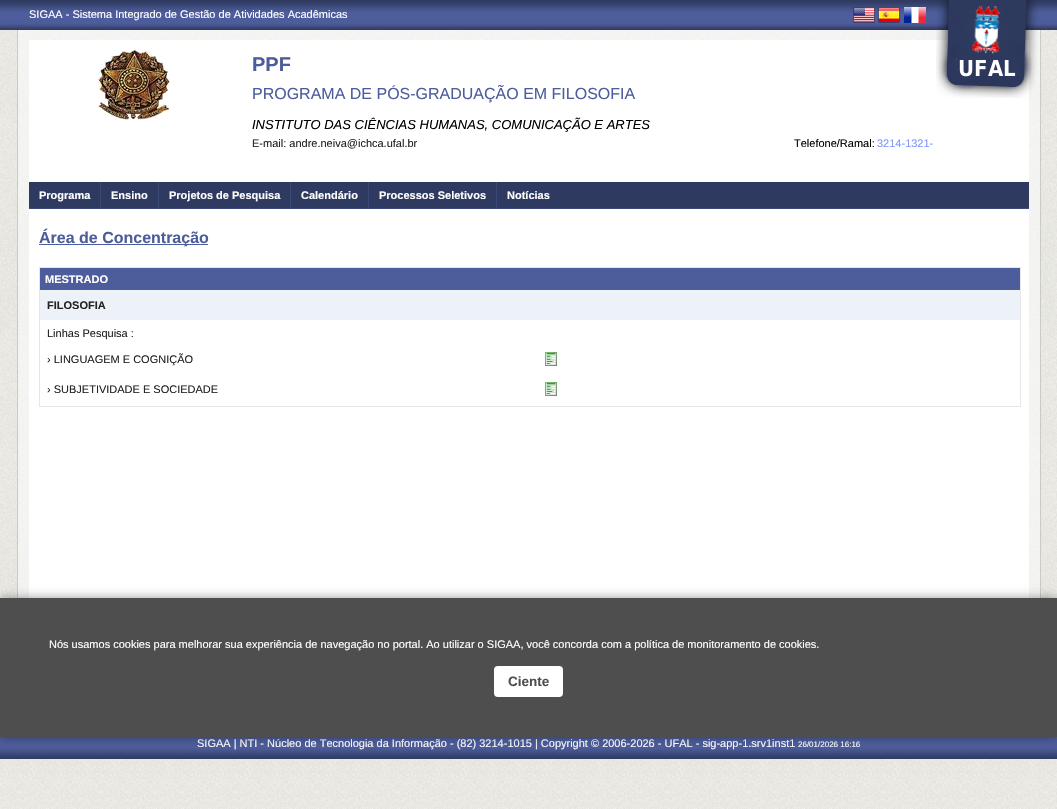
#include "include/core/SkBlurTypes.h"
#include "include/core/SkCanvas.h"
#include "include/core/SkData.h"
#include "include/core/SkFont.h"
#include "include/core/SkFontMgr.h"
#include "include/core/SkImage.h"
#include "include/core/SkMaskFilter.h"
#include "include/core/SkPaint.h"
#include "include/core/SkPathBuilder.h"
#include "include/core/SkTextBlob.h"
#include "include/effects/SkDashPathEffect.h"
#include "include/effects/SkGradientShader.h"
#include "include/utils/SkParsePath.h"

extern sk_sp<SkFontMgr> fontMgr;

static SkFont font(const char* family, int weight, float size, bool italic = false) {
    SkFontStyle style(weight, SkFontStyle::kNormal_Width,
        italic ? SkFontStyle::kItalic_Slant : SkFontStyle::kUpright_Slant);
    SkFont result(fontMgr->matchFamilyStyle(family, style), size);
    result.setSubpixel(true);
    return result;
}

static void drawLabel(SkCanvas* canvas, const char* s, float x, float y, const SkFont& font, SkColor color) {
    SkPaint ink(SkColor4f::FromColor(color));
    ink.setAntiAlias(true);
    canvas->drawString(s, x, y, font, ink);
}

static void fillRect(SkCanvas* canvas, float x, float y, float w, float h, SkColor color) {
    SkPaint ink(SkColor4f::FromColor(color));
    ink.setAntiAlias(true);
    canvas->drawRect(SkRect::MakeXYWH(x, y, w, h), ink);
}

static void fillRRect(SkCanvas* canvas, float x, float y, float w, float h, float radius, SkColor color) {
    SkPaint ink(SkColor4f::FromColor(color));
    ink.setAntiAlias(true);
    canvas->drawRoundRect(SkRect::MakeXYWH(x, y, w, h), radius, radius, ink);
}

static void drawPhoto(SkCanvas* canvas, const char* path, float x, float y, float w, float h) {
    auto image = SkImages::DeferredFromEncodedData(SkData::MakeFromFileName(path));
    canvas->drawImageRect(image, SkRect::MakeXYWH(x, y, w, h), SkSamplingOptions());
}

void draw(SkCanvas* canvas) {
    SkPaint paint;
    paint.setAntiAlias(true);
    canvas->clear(0xFFFFFFFF);
    drawPhoto(canvas, "assets/img1.png", 0, 30, 1057, 779);
    drawPhoto(canvas, "assets/img2.png", 0, 0, 1057, 30);
    drawPhoto(canvas, "assets/img3.png", 0, 737, 1057, 22);
    SkFont font1 = font("Liberation Sans", 400, 11);
    drawLabel(canvas, "SIGAA - Sistema Integrado de Gestão de Atividades Acadêmicas", 29, 18, font1, 0xFFFFFFFF);
    drawPhoto(canvas, "assets/img4.png", 853, 7, 22, 16);
    drawPhoto(canvas, "assets/img5.png", 878, 7, 22, 16);
    drawPhoto(canvas, "assets/img6.png", 904, 7, 22, 16);
    drawPhoto(canvas, "assets/img8.png", 18, 30, 1022, 568);
    fillRect(canvas, 29, 40, 1000, 558, 0xFFFFFFFF);
    drawPhoto(canvas, "assets/img7.png", 936, 0, 102, 98);
    fillRect(canvas, 1040, 30, 1, 568, 0xFFCACAC7);
    fillRect(canvas, 17, 30, 1, 568, 0xFFCACAC7);
    drawPhoto(canvas, "assets/img9.png", 98, 50, 72, 71);
    SkFont font2 = font("Liberation Sans", 700, 20);
    drawLabel(canvas, "PPF", 252, 71, font2, 0xFF4D5D9C);
    SkFont font3 = font("Liberation Sans", 400, 16);
    drawLabel(canvas, "PROGRAMA DE PÓS-GRADUAÇÃO EM FILOSOFIA", 252, 99, font3, 0xFF4D5D9C);
    SkFont font4 = font("Liberation Sans", 400, 13, true);
    drawLabel(canvas, "INSTITUTO DAS CIÊNCIAS HUMANAS, COMUNICAÇÃO E ARTES", 252, 129, font4, 0xFF000000);
    drawLabel(canvas, "E-mail: andre.neiva@ichca.ufal.br", 252, 147, font1, 0xFF222222);
    drawLabel(canvas, "Telefone/Ramal:", 794, 147, font1, 0xFF000000);
    drawLabel(canvas, "3214-1321-", 877, 147, font1, 0xFF7D97FE);
    fillRect(canvas, 29, 182, 1000, 26, 0xFF2F3A60);
    fillRect(canvas, 29, 208, 1000, 1, 0xFF3B4878);
    SkFont font5 = font("Liberation Sans", 700, 11);
    drawLabel(canvas, "Programa", 39, 199, font5, 0xFFFFFFFF);
    fillRect(canvas, 100, 182, 1, 27, 0xFF3B4878);
    drawLabel(canvas, "Ensino", 111, 199, font5, 0xFFFFFFFF);
    fillRect(canvas, 158, 182, 1, 27, 0xFF3B4878);
    drawLabel(canvas, "Projetos de Pesquisa", 169, 199, font5, 0xFFFFFFFF);
    fillRect(canvas, 290, 182, 1, 27, 0xFF3B4878);
    drawLabel(canvas, "Calendário", 301, 199, font5, 0xFFFFFFFF);
    fillRect(canvas, 368, 182, 1, 27, 0xFF3B4878);
    drawLabel(canvas, "Processos Seletivos", 379, 199, font5, 0xFFFFFFFF);
    fillRect(canvas, 496, 182, 1, 27, 0xFF3B4878);
    drawLabel(canvas, "Notícias", 507, 199, font5, 0xFFFFFFFF);
    fillRect(canvas, 39, 244, 169, 1, 0xFF4D5D9C);
    SkFont font6 = font("Liberation Sans", 700, 16);
    drawLabel(canvas, "Área de Concentração", 39, 243, font6, 0xFF4D5D9C);
    paint.setStroke(true);
    paint.setStrokeWidth(1);
    paint.setColor(0xFFE7E7E7);
    canvas->drawRect(SkRect::MakeXYWH(39.5f, 267.5f, 981, 139), paint);
    fillRect(canvas, 40, 268, 980, 22, 0xFF4D5D9C);
    drawLabel(canvas, "MESTRADO", 45, 283, font5, 0xFFFFFFFF);
    fillRect(canvas, 40, 290, 980, 30, 0xFFEDF1F8);
    drawLabel(canvas, "FILOSOFIA", 47, 309, font5, 0xFF222222);
    drawLabel(canvas, "Linhas Pesquisa :", 47, 337, font1, 0xFF222222);
    drawLabel(canvas, "› LINGUAGEM E COGNIÇÃO", 47, 363, font1, 0xFF222222);
    drawPhoto(canvas, "assets/img10.png", 545, 352, 12, 14);
    drawLabel(canvas, "› SUBJETIVIDADE E SOCIEDADE", 47, 393, font1, 0xFF222222);
    drawPhoto(canvas, "assets/img10.png", 545, 382, 12, 14);
    drawLabel(canvas, "SIGAA | NTI - Núcleo de Tecnologia da Informação - (82) 3214-1015 | Copyright © 2006-2026 - UFAL - sig-app-1.srv1inst1", 197, 747, font1, 0xFFFFFFFF);
    SkFont font7 = font("Liberation Sans", 400, 8);
    drawLabel(canvas, "26/01/2026 16:16", 798, 747, font7, 0xFFFFFFFF);
    paint.setStroke(false);
    paint.setColor(0x66000000);
    paint.setMaskFilter(SkMaskFilter::MakeBlur(kNormal_SkBlurStyle, 5));
    canvas->drawRect(SkRect::MakeXYWH(0, 598, 1057, 139), paint);
    paint.setMaskFilter(nullptr);
    fillRect(canvas, 0, 598, 1057, 139, 0xFF4E4E4E);
    drawLabel(canvas, "Nós usamos cookies para melhorar sua experiência de navegação no portal. Ao utilizar o SIGAA, você concorda com a política de monitoramento de cookies.", 49, 648, font1, 0xFFFFFFFF);
    fillRRect(canvas, 494, 666, 69, 31, 4, 0xFFFFFFFF);
    SkFont font8 = font("Liberation Sans", 700, 13.5f);
    drawLabel(canvas, "Ciente", 508, 686, font8, 0xFF4E4E4E);
}
